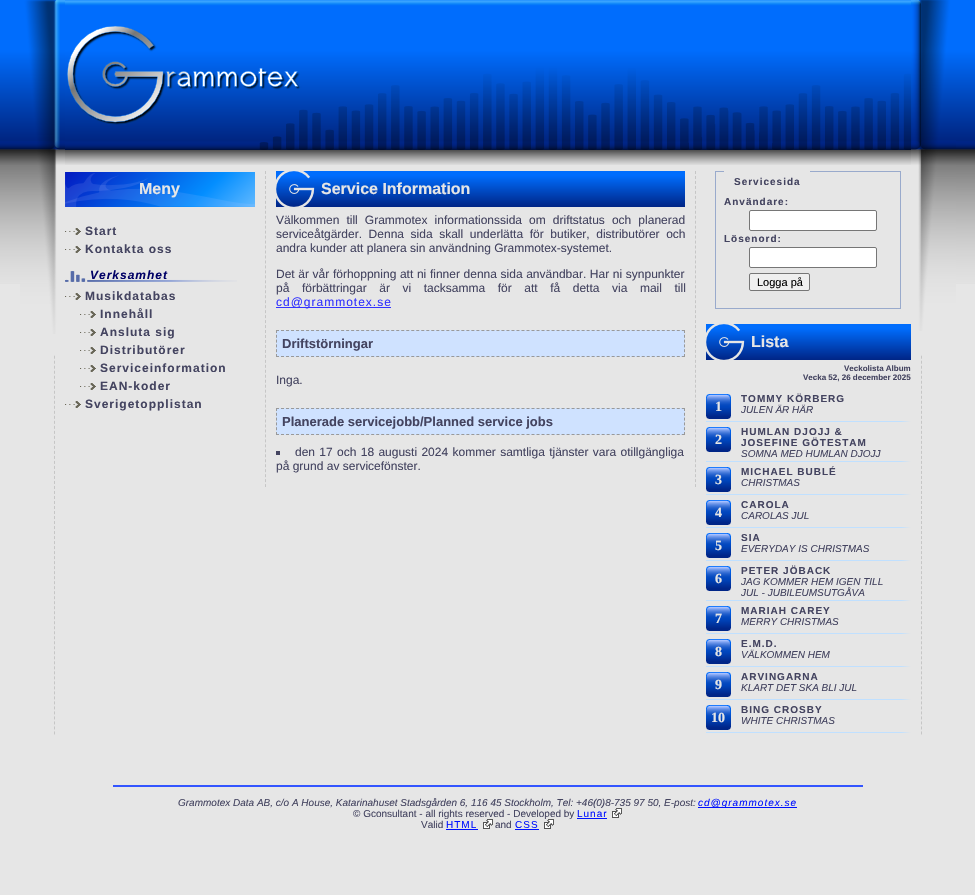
#include "include/core/SkBlurTypes.h"
#include "include/core/SkCanvas.h"
#include "include/core/SkData.h"
#include "include/core/SkFont.h"
#include "include/core/SkFontMgr.h"
#include "include/core/SkImage.h"
#include "include/core/SkMaskFilter.h"
#include "include/core/SkPaint.h"
#include "include/core/SkPathBuilder.h"
#include "include/core/SkTextBlob.h"
#include "include/effects/SkDashPathEffect.h"
#include "include/effects/SkGradientShader.h"
#include "include/utils/SkParsePath.h"

extern sk_sp<SkFontMgr> fontMgr;

static SkFont font(const char* family, int weight, float size, bool italic = false) {
    SkFontStyle style(weight, SkFontStyle::kNormal_Width,
        italic ? SkFontStyle::kItalic_Slant : SkFontStyle::kUpright_Slant);
    SkFont result(fontMgr->matchFamilyStyle(family, style), size);
    result.setSubpixel(true);
    return result;
}

static void drawLabel(SkCanvas* canvas, const char* s, float x, float y, const SkFont& font, SkColor color) {
    SkPaint ink(SkColor4f::FromColor(color));
    ink.setAntiAlias(true);
    canvas->drawString(s, x, y, font, ink);
}

static void drawTracked(SkCanvas* canvas, const char* s, float x, float y, const SkFont& font, const SkPaint& ink, float letter, float word) {
    std::vector<SkGlyphID> glyphs(font.countText(s, strlen(s), SkTextEncoding::kUTF8));
    std::vector<float> xs(glyphs.size());
    font.textToGlyphs(s, strlen(s), SkTextEncoding::kUTF8, glyphs);
    font.getXPos(glyphs, xs, x);
    float extra = 0;
    for (size_t i = 0; i < glyphs.size(); i++) {
        xs[i] += extra;
        extra += letter + word * (glyphs[i] == font.unicharToGlyph(' '));
    }
    canvas->drawTextBlob(SkTextBlob::MakeFromPosHGlyphs(glyphs, xs, y, font), 0, 0, ink);
}

static void fillRect(SkCanvas* canvas, float x, float y, float w, float h, SkColor color) {
    SkPaint ink(SkColor4f::FromColor(color));
    ink.setAntiAlias(true);
    canvas->drawRect(SkRect::MakeXYWH(x, y, w, h), ink);
}

static void drawPhoto(SkCanvas* canvas, const char* path, float x, float y, float w, float h) {
    auto image = SkImages::DeferredFromEncodedData(SkData::MakeFromFileName(path));
    canvas->drawImageRect(image, SkRect::MakeXYWH(x, y, w, h), SkSamplingOptions());
}

static SkPath parsePath(const char* data, bool evenOdd = false) {
    SkPath result = *SkParsePath::FromSVGString(data);
    if (evenOdd) result.setFillType(SkPathFillType::kEvenOdd);
    return result;
}

void draw(SkCanvas* canvas) {
    SkPaint paint;
    paint.setAntiAlias(true);
    canvas->clear(0xFFE6E6E6);
    drawPhoto(canvas, "assets/img1.png", 0, 0, 975, 284);
    paint.setStroke(true);
    paint.setStrokeWidth(1);
    paint.setColor(0xFFC6C6C6);
    paint.setPathEffect(SkDashPathEffect::Make({{3, 2.01f}}, 0));
    canvas->drawPath(parsePath("M54.5 0V735"), paint);
    paint.setPathEffect(nullptr);
    fillRect(canvas, 54, 335, 1, 19, 0xFFE6E6E6);
    fillRect(canvas, 55, 165, 866, 119, 0xFFE6E6E6);
    drawPhoto(canvas, "assets/img2.png", 20, 0, 45, 334);
    paint.setPathEffect(SkDashPathEffect::Make({{3, 2.01f}}, 0));
    canvas->drawPath(parsePath("M921.5 0V735"), paint);
    paint.setPathEffect(nullptr);
    drawPhoto(canvas, "assets/img3.png", 65, 0, 846, 150);
    drawPhoto(canvas, "assets/img4.png", 65, 150, 846, 15);
    drawPhoto(canvas, "assets/img5.png", 65, 172, 190, 35);
    SkFont font1 = font("Liberation Sans", 700, 16);
    drawLabel(canvas, "Meny", 139, 194, font1, 0xFFE6E6E6);
    drawPhoto(canvas, "assets/img6.png", 65, 228, 16, 7);
    SkFont font2 = font("Liberation Sans", 700, 12);
    paint.setStroke(false);
    paint.setColor(0xFF444460);
    drawTracked(canvas, "Start", 85, 235, font2, paint, 1, 0);
    drawPhoto(canvas, "assets/img6.png", 65, 246, 16, 7);
    drawTracked(canvas, "Kontakta oss", 85, 253, font2, paint, 1, 0);
    drawPhoto(canvas, "assets/img7.png", 65, 271, 172, 11);
    SkFont font3 = font("Liberation Sans", 700, 12, true);
    paint.setColor(0xFF000066);
    drawTracked(canvas, "Verksamhet", 90, 279, font3, paint, 1, 0);
    drawPhoto(canvas, "assets/img6.png", 65, 293, 16, 7);
    paint.setColor(0xFF444460);
    drawTracked(canvas, "Musikdatabas", 85, 300, font2, paint, 1, 0);
    drawPhoto(canvas, "assets/img6.png", 80, 311, 16, 7);
    drawTracked(canvas, "Innehåll", 100, 318, font2, paint, 1, 0);
    drawPhoto(canvas, "assets/img6.png", 80, 329, 16, 7);
    drawTracked(canvas, "Ansluta sig", 100, 336, font2, paint, 1, 0);
    drawPhoto(canvas, "assets/img6.png", 80, 347, 16, 7);
    drawTracked(canvas, "Distributörer", 100, 354, font2, paint, 1, 0);
    drawPhoto(canvas, "assets/img6.png", 80, 365, 16, 7);
    drawTracked(canvas, "Serviceinformation", 100, 372, font2, paint, 1, 0);
    drawPhoto(canvas, "assets/img6.png", 80, 383, 16, 7);
    drawTracked(canvas, "EAN-koder", 100, 390, font2, paint, 1, 0);
    drawPhoto(canvas, "assets/img6.png", 65, 401, 16, 7);
    drawTracked(canvas, "Sverigetopplistan", 85, 408, font2, paint, 1, 0);
    paint.setStroke(true);
    paint.setColor(0xFFC6C6C6);
    paint.setPathEffect(SkDashPathEffect::Make({{3, 1.97f}}, 0));
    canvas->drawPath(parsePath("M695.5 171V487"), paint);
    paint.setPathEffect(nullptr);
    paint.setPathEffect(SkDashPathEffect::Make({{3, 1.97f}}, 0));
    canvas->drawPath(parsePath("M265.5 171V487"), paint);
    paint.setPathEffect(nullptr);
    drawPhoto(canvas, "assets/img8.png", 276, 171, 409, 36);
    drawLabel(canvas, "Service Information", 321, 194, font1, 0xFFE6E6E6);
    SkFont font4 = font("Liberation Sans", 400, 12);
    paint.setStroke(false);
    paint.setColor(0xFF444460);
    drawTracked(canvas, "Välkommen till Grammotex informationssida om driftstatus och planerad", 276, 224, font4, paint, 0, 3.75f);
    drawTracked(canvas, "serviceåtgärder. Denna sida skall underlätta för butiker, distributörer och", 276, 238, font4, paint, 0, 3.25f);
    drawLabel(canvas, "andra kunder att planera sin användning Grammotex-systemet.", 276, 252, font4, 0xFF444460);
    drawTracked(canvas, "Det är vår förhoppning att ni finner denna sida användbar. Har ni synpunkter", 276, 278, font4, paint, 0, 0.3f);
    drawTracked(canvas, "på förbättringar är vi tacksamma för att få detta via mail till", 276, 292, font4, paint, 0, 9.25f);
    fillRect(canvas, 276, 307, 115, 1, 0xFF3333FF);
    paint.setColor(0xFF3333FF);
    drawTracked(canvas, "cd@grammotex.se", 276, 306, font4, paint, 1, 0);
    fillRect(canvas, 276, 330, 409, 27, 0xFFCFE2FF);
    paint.setStroke(true);
    paint.setColor(0xFF999999);
    paint.setPathEffect(SkDashPathEffect::Make({{3, 2.01f}}, 0));
    canvas->drawPath(parsePath("M276 330.5H685"), paint);
    paint.setPathEffect(nullptr);
    paint.setPathEffect(SkDashPathEffect::Make({{3, 1.8f}}, 0));
    canvas->drawPath(parsePath("M684.5 330V357"), paint);
    paint.setPathEffect(nullptr);
    paint.setPathEffect(SkDashPathEffect::Make({{3, 2.01f}}, 0));
    canvas->drawPath(parsePath("M276 356.5H685"), paint);
    paint.setPathEffect(nullptr);
    paint.setPathEffect(SkDashPathEffect::Make({{3, 1.8f}}, 0));
    canvas->drawPath(parsePath("M276.5 330V357"), paint);
    paint.setPathEffect(nullptr);
    SkFont font5 = font("Liberation Sans", 700, 13);
    drawLabel(canvas, "Driftstörningar", 282, 348, font5, 0xFF444460);
    drawLabel(canvas, "Inga.", 276, 384, font4, 0xFF444460);
    fillRect(canvas, 276, 408, 409, 27, 0xFFCFE2FF);
    paint.setPathEffect(SkDashPathEffect::Make({{3, 2.01f}}, 0));
    canvas->drawPath(parsePath("M276 408.5H685"), paint);
    paint.setPathEffect(nullptr);
    paint.setPathEffect(SkDashPathEffect::Make({{3, 1.8f}}, 0));
    canvas->drawPath(parsePath("M684.5 408V435"), paint);
    paint.setPathEffect(nullptr);
    paint.setPathEffect(SkDashPathEffect::Make({{3, 2.01f}}, 0));
    canvas->drawPath(parsePath("M276 434.5H685"), paint);
    paint.setPathEffect(nullptr);
    paint.setPathEffect(SkDashPathEffect::Make({{3, 1.8f}}, 0));
    canvas->drawPath(parsePath("M276.5 408V435"), paint);
    paint.setPathEffect(nullptr);
    drawLabel(canvas, "Planerade servicejobb/Planned service jobs", 282, 426, font5, 0xFF444460);
    fillRect(canvas, 276, 451, 4, 4, 0xFF444460);
    paint.setStroke(false);
    paint.setColor(0xFF444460);
    drawTracked(canvas, "den 17 och 18 augusti 2024 kommer samtliga tjänster vara otillgängliga", 295, 456, font4, paint, 0, 1);
    drawLabel(canvas, "på grund av servicefönster.", 276, 470, font4, 0xFF444460);
    paint.setStroke(true);
    paint.setColor(0xFF99AACC);
    canvas->drawRect(SkRect::MakeXYWH(715.5f, 171.5f, 185, 137), paint);
    fillRect(canvas, 724, 171, 86, 1, 0xFFE6E6E6);
    SkFont font6 = font("Liberation Sans", 700, 10);
    paint.setStroke(false);
    paint.setColor(0xFF444460);
    drawTracked(canvas, "Servicesida", 734, 185, font6, paint, 1, 0);
    drawTracked(canvas, "Användare:", 724, 205, font6, paint, 1, 0);
    paint.setColor(0xFFFFFFFF);
    canvas->drawRoundRect(SkRect::MakeXYWH(749.5f, 210.5f, 127, 20), 1.5f, 1.5f, paint);
    paint.setStroke(true);
    paint.setColor(0xFF767676);
    canvas->drawRoundRect(SkRect::MakeXYWH(749.5f, 210.5f, 127, 20), 1.5f, 1.5f, paint);
    paint.setStroke(false);
    paint.setColor(0xFF444460);
    drawTracked(canvas, "Lösenord:", 724, 242, font6, paint, 1, 0);
    paint.setColor(0xFFFFFFFF);
    canvas->drawRoundRect(SkRect::MakeXYWH(749.5f, 247.5f, 127, 20), 1.5f, 1.5f, paint);
    paint.setStroke(true);
    paint.setColor(0xFF767676);
    canvas->drawRoundRect(SkRect::MakeXYWH(749.5f, 247.5f, 127, 20), 1.5f, 1.5f, paint);
    paint.setStroke(false);
    paint.setColor(0xFFEFEFEF);
    canvas->drawRoundRect(SkRect::MakeXYWH(749.5f, 273.5f, 60, 17), 1.5f, 1.5f, paint);
    paint.setStroke(true);
    paint.setColor(0xFF767676);
    canvas->drawRoundRect(SkRect::MakeXYWH(749.5f, 273.5f, 60, 17), 1.5f, 1.5f, paint);
    SkFont font7 = font("Liberation Sans", 400, 11);
    drawLabel(canvas, "Logga på", 757, 286, font7, 0xFF000000);
    drawPhoto(canvas, "assets/img9.png", 706, 324, 205, 36);
    drawLabel(canvas, "Lista", 751, 347, font1, 0xFFE6E6E6);
    SkFont font8 = font("Liberation Sans", 700, 8);
    drawLabel(canvas, "Veckolista Album", 844, 371, font8, 0xFF444460);
    drawLabel(canvas, "Vecka 52, 26 december 2025", 803, 380, font8, 0xFF444460);
    paint.setStroke(false);
    paint.setColor(0xFFC0E0FF);
    canvas->drawPath(parsePath("M911 422H706V421H901Z"), paint);
    drawPhoto(canvas, "assets/img10.png", 706, 394, 25, 25);
    SkFont font9 = font("Liberation Serif", 700, 14);
    drawLabel(canvas, "1", 715, 411, font9, 0xFFE6E6E6);
    paint.setColor(0xFF444460);
    drawTracked(canvas, "TOMMY KÖRBERG", 741, 402, font6, paint, 1, 0);
    SkFont font10 = font("Liberation Sans", 400, 10, true);
    drawLabel(canvas, "JULEN ÄR HÄR", 741, 413, font10, 0xFF444460);
    paint.setColor(0xFFC0E0FF);
    canvas->drawPath(parsePath("M911 462H706V461H901Z"), paint);
    drawPhoto(canvas, "assets/img10.png", 706, 427, 25, 25);
    drawLabel(canvas, "2", 715, 444, font9, 0xFFE6E6E6);
    paint.setColor(0xFF444460);
    drawTracked(canvas, "HUMLAN DJOJJ &", 741, 435, font6, paint, 1, 0);
    drawTracked(canvas, "JOSEFINE GÖTESTAM", 741, 446, font6, paint, 1, 0);
    drawLabel(canvas, "SOMNA MED HUMLAN DJOJJ", 741, 457, font10, 0xFF444460);
    paint.setColor(0xFFC0E0FF);
    canvas->drawPath(parsePath("M911 495H706V494H901Z"), paint);
    drawPhoto(canvas, "assets/img10.png", 706, 467, 25, 25);
    drawLabel(canvas, "3", 715, 484, font9, 0xFFE6E6E6);
    paint.setColor(0xFF444460);
    drawTracked(canvas, "MICHAEL BUBLÉ", 741, 475, font6, paint, 1, 0);
    drawLabel(canvas, "CHRISTMAS", 741, 486, font10, 0xFF444460);
    paint.setColor(0xFFC0E0FF);
    canvas->drawPath(parsePath("M911 528H706V527H901Z"), paint);
    drawPhoto(canvas, "assets/img10.png", 706, 500, 25, 25);
    drawLabel(canvas, "4", 715, 517, font9, 0xFFE6E6E6);
    paint.setColor(0xFF444460);
    drawTracked(canvas, "CAROLA", 741, 508, font6, paint, 1, 0);
    drawLabel(canvas, "CAROLAS JUL", 741, 519, font10, 0xFF444460);
    paint.setColor(0xFFC0E0FF);
    canvas->drawPath(parsePath("M911 561H706V560H901Z"), paint);
    drawPhoto(canvas, "assets/img10.png", 706, 533, 25, 25);
    drawLabel(canvas, "5", 715, 550, font9, 0xFFE6E6E6);
    paint.setColor(0xFF444460);
    drawTracked(canvas, "SIA", 741, 541, font6, paint, 1, 0);
    drawLabel(canvas, "EVERYDAY IS CHRISTMAS", 741, 552, font10, 0xFF444460);
    paint.setColor(0xFFC0E0FF);
    canvas->drawPath(parsePath("M911 601H706V600H901Z"), paint);
    drawPhoto(canvas, "assets/img10.png", 706, 566, 25, 25);
    drawLabel(canvas, "6", 715, 583, font9, 0xFFE6E6E6);
    paint.setColor(0xFF444460);
    drawTracked(canvas, "PETER JÖBACK", 741, 574, font6, paint, 1, 0);
    drawLabel(canvas, "JAG KOMMER HEM IGEN TILL", 741, 585, font10, 0xFF444460);
    drawLabel(canvas, "JUL - JUBILEUMSUTGÅVA", 741, 596, font10, 0xFF444460);
    paint.setColor(0xFFC0E0FF);
    canvas->drawPath(parsePath("M911 634H706V633H901Z"), paint);
    drawPhoto(canvas, "assets/img10.png", 706, 606, 25, 25);
    drawLabel(canvas, "7", 715, 623, font9, 0xFFE6E6E6);
    paint.setColor(0xFF444460);
    drawTracked(canvas, "MARIAH CAREY", 741, 614, font6, paint, 1, 0);
    drawLabel(canvas, "MERRY CHRISTMAS", 741, 625, font10, 0xFF444460);
    paint.setColor(0xFFC0E0FF);
    canvas->drawPath(parsePath("M911 667H706V666H901Z"), paint);
    drawPhoto(canvas, "assets/img10.png", 706, 639, 25, 25);
    drawLabel(canvas, "8", 715, 656, font9, 0xFFE6E6E6);
    paint.setColor(0xFF444460);
    drawTracked(canvas, "E.M.D.", 741, 647, font6, paint, 1, 0);
    drawLabel(canvas, "VÄLKOMMEN HEM", 741, 658, font10, 0xFF444460);
    paint.setColor(0xFFC0E0FF);
    canvas->drawPath(parsePath("M911 700H706V699H901Z"), paint);
    drawPhoto(canvas, "assets/img10.png", 706, 672, 25, 25);
    drawLabel(canvas, "9", 715, 689, font9, 0xFFE6E6E6);
    paint.setColor(0xFF444460);
    drawTracked(canvas, "ARVINGARNA", 741, 680, font6, paint, 1, 0);
    drawLabel(canvas, "KLART DET SKA BLI JUL", 741, 691, font10, 0xFF444460);
    paint.setColor(0xFFC0E0FF);
    canvas->drawPath(parsePath("M911 733H706V732H901Z"), paint);
    drawPhoto(canvas, "assets/img10.png", 706, 705, 25, 25);
    drawLabel(canvas, "10", 711, 722, font9, 0xFFE6E6E6);
    paint.setColor(0xFF444460);
    drawTracked(canvas, "BING CROSBY", 741, 713, font6, paint, 1, 0);
    drawLabel(canvas, "WHITE CHRISTMAS", 741, 724, font10, 0xFF444460);
    fillRect(canvas, 921, 331, 1, 23, 0xFFE6E6E6);
    drawPhoto(canvas, "assets/img11.png", 911, 0, 45, 331);
    fillRect(canvas, 113, 785, 750, 2, 0xFF3355FF);
    drawLabel(canvas, "Grammotex Data AB, c/o A House, Katarinahuset Stadsgården 6, 116 45 Stockholm, Tel: +46(0)8-735 97 50, E-post:", 178, 806, font10, 0xFF444460);
    fillRect(canvas, 698, 807, 99, 1, 0xFF0011FF);
    paint.setColor(0xFF0011FF);
    drawTracked(canvas, "cd@grammotex.se", 698, 806, font10, paint, 1, 0);
    SkFont font11 = font("Liberation Sans", 400, 10);
    drawLabel(canvas, "© Gconsultant - all rights reserved - Developed by", 353, 817, font11, 0xFF444460);
    drawTracked(canvas, "Lunar", 577, 817, font11, paint, 1, 0);
    fillRect(canvas, 577, 818, 30, 1, 0xFF0011FF);
    drawPhoto(canvas, "assets/img12.png", 612, 808, 10, 10);
    drawLabel(canvas, "Valid", 421, 828, font11, 0xFF444460);
    drawTracked(canvas, "HTML", 446, 828, font11, paint, 1, 0);
    fillRect(canvas, 446, 829, 32, 1, 0xFF0011FF);
    drawPhoto(canvas, "assets/img12.png", 483, 819, 10, 10);
    drawLabel(canvas, "and", 495, 828, font11, 0xFF444460);
    drawTracked(canvas, "CSS", 515, 828, font11, paint, 1, 0);
    fillRect(canvas, 515, 829, 24, 1, 0xFF0011FF);
    drawPhoto(canvas, "assets/img13.png", 544, 819, 10, 10);
}
